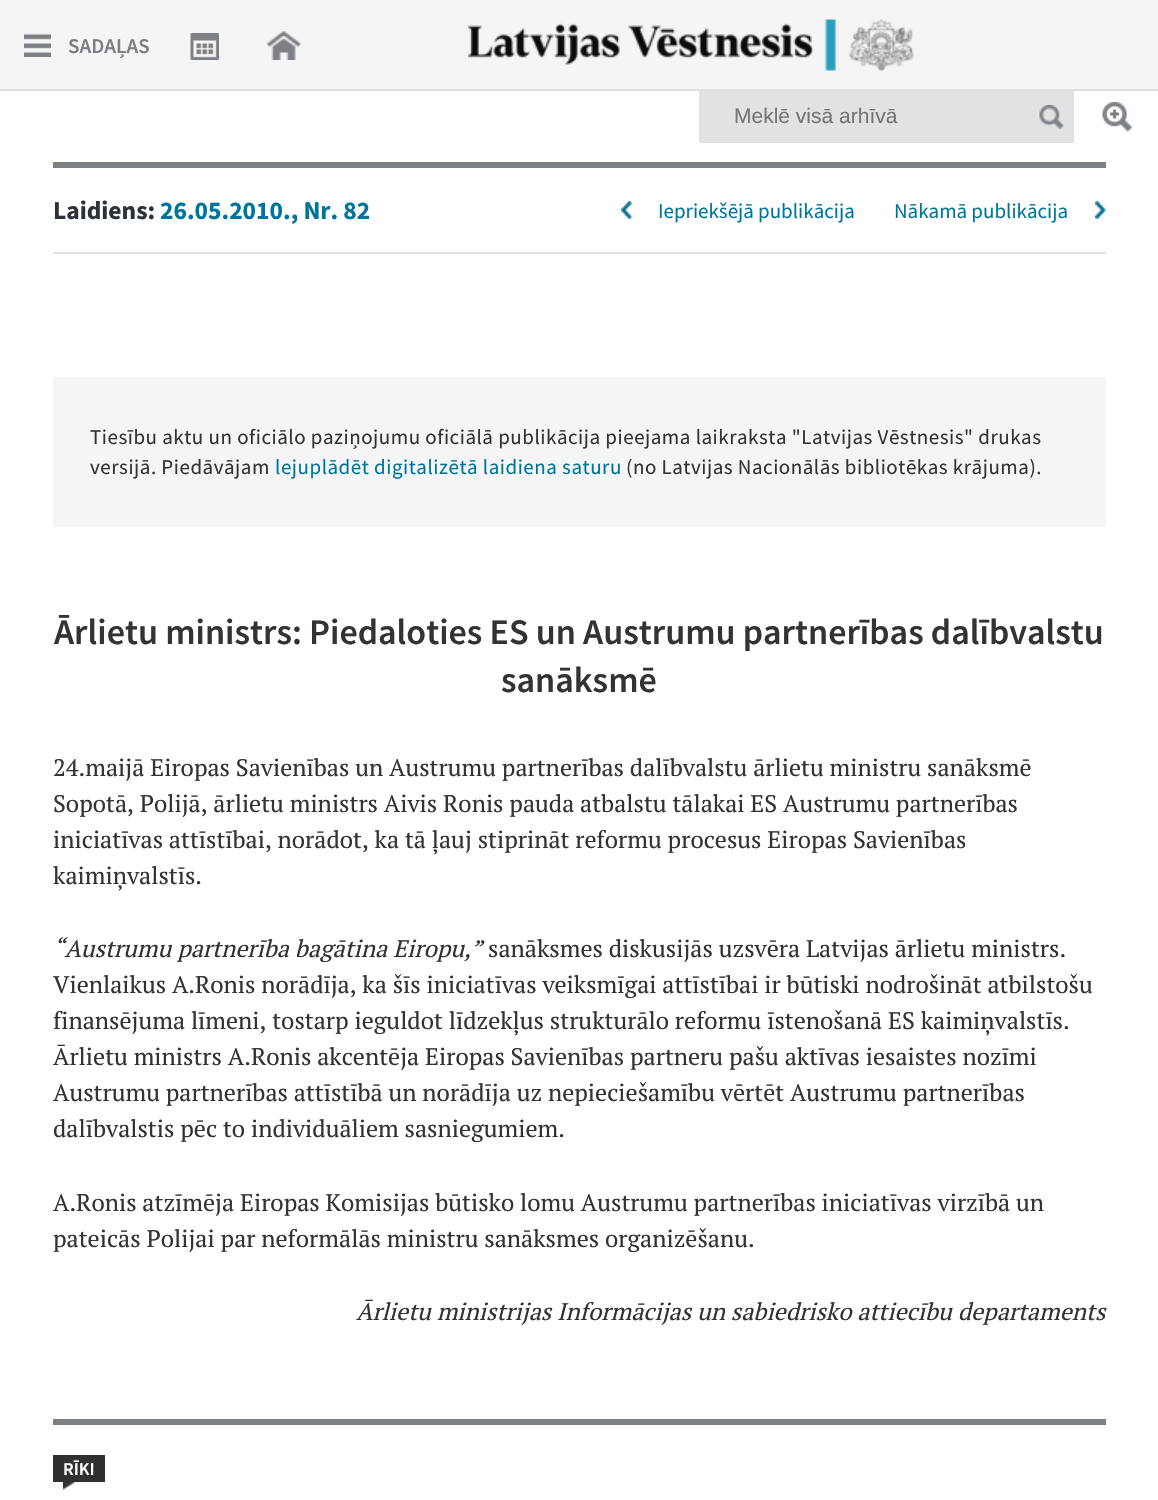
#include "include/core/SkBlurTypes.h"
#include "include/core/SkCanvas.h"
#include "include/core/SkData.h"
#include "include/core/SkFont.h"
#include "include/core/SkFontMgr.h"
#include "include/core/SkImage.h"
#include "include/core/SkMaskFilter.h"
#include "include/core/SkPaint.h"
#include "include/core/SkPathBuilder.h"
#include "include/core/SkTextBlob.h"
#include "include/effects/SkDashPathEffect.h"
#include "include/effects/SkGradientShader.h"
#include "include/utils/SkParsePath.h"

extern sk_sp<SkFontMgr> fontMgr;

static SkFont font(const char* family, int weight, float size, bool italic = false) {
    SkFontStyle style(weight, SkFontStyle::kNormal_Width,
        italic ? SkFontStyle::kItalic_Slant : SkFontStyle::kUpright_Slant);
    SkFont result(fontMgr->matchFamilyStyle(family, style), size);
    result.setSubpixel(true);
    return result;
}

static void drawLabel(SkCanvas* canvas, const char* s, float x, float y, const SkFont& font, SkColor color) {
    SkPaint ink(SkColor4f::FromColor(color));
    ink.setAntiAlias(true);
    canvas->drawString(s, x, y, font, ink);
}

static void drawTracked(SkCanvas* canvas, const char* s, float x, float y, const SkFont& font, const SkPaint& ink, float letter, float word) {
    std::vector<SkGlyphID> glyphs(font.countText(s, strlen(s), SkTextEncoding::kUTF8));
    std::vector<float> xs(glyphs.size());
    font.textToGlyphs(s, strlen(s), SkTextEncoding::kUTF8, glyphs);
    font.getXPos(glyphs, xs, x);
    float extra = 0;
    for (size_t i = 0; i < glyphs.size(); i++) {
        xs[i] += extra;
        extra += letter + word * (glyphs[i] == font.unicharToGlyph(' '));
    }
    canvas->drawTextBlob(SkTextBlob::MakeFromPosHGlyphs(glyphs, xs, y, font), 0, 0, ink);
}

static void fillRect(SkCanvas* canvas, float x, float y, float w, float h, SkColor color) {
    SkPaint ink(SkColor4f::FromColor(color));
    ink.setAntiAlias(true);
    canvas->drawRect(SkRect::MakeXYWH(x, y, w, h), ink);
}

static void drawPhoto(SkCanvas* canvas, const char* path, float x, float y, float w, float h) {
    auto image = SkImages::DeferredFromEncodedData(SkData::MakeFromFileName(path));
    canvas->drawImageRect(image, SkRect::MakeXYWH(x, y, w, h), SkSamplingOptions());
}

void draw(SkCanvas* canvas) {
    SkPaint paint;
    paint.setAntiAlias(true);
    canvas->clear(0xFFFFFFFF);
    fillRect(canvas, 0, 0, 1158, 89, 0xFFF5F5F5);
    fillRect(canvas, 0, 89, 1158, 2, 0xFFDCE0E0);
    drawPhoto(canvas, "assets/img1.png", 24, 34, 27, 23);
    SkFont font1 = font("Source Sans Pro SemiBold", 600, 21);
    drawLabel(canvas, "SADAĻAS", 68, 53, font1, 0xFF7C8085);
    drawPhoto(canvas, "assets/img2.png", 190, 33, 29, 27);
    drawPhoto(canvas, "assets/img3.png", 267, 31, 35, 29);
    drawPhoto(canvas, "assets/img4.png", 468, 19, 446, 52);
    fillRect(canvas, 699, 89, 375, 54, 0xFFE2E2E4);
    SkFont font2 = font("Liberation Sans", 400, 21);
    drawLabel(canvas, "Meklē visā arhīvā", 734, 123, font2, 0xFF757575);
    drawPhoto(canvas, "assets/img5.png", 1039, 105, 25, 24);
    drawPhoto(canvas, "assets/img6.png", 1102, 102, 31, 30);
    fillRect(canvas, 53, 162, 1053, 6, 0xFF7C8085);
    fillRect(canvas, 53, 252, 1053, 2, 0xFFE2E2E4);
    SkFont font3 = font("Source Sans Pro", 700, 25.5f);
    drawLabel(canvas, "Laidiens:", 53, 219, font3, 0xFF2C323A);
    drawLabel(canvas, "26.05.2010., Nr. 82", 160, 219, font3, 0xFF00759B);
    drawPhoto(canvas, "assets/img7.png", 621, 201, 11, 18);
    SkFont font4 = font("Source Sans Pro", 400, 21);
    drawLabel(canvas, "Iepriekšējā publikācija", 658, 218, font4, 0xFF00759B);
    drawPhoto(canvas, "assets/img8.png", 1095, 201, 11, 18);
    drawLabel(canvas, "Nākamā publikācija", 894, 218, font4, 0xFF00759B);
    fillRect(canvas, 53, 377, 1053, 150, 0xFFF5F5F5);
    paint.setColor(0xFF333333);
    drawTracked(canvas, "Tiesību aktu un oficiālo paziņojumu oficiālā publikācija pieejama laikraksta \"Latvijas Vēstnesis\" drukas", 90, 444, font4, paint, 0.52f, 0);
    drawTracked(canvas, "versijā. Piedāvājam", 90, 474, font4, paint, 0.52f, 0);
    paint.setColor(0xFF00759B);
    drawTracked(canvas, "lejuplādēt digitalizētā laidiena saturu", 275, 474, font4, paint, 0.52f, 0);
    paint.setColor(0xFF333333);
    drawTracked(canvas, "(no Latvijas Nacionālās bibliotēkas krājuma).", 626, 474, font4, paint, 0.52f, 0);
    SkFont font5 = font("Source Sans Pro SemiBold", 600, 36);
    drawLabel(canvas, "Ārlietu ministrs: Piedaloties ES un Austrumu partnerības dalībvalstu", 54, 644, font5, 0xFF333333);
    drawLabel(canvas, "sanāksmē", 501, 692, font5, 0xFF333333);
    SkFont font6 = font("PT Serif", 400, 24);
    drawLabel(canvas, "24.maijā Eiropas Savienības un Austrumu partnerības dalībvalstu ārlietu ministru sanāksmē", 53, 776, font6, 0xFF333333);
    drawLabel(canvas, "Sopotā, Polijā, ārlietu ministrs Aivis Ronis pauda atbalstu tālakai ES Austrumu partnerības", 53, 812, font6, 0xFF333333);
    drawLabel(canvas, "iniciatīvas attīstībai, norādot, ka tā ļauj stiprināt reformu procesus Eiropas Savienības", 53, 848, font6, 0xFF333333);
    drawLabel(canvas, "kaimiņvalstīs.", 53, 884, font6, 0xFF333333);
    SkFont font7 = font("PT Serif", 400, 24, true);
    drawLabel(canvas, "“Austrumu partnerība bagātina Eiropu,”", 53, 957, font7, 0xFF333333);
    drawLabel(canvas, "sanāksmes diskusijās uzsvēra Latvijas ārlietu ministrs.", 488, 957, font6, 0xFF333333);
    drawLabel(canvas, "Vienlaikus A.Ronis norādīja, ka šīs iniciatīvas veiksmīgai attīstībai ir būtiski nodrošināt atbilstošu", 53, 993, font6, 0xFF333333);
    drawLabel(canvas, "finansējuma līmeni, tostarp ieguldot līdzekļus strukturālo reformu īstenošanā ES kaimiņvalstīs.", 53, 1029, font6, 0xFF333333);
    drawLabel(canvas, "Ārlietu ministrs A.Ronis akcentēja Eiropas Savienības partneru pašu aktīvas iesaistes nozīmi", 53, 1065, font6, 0xFF333333);
    drawLabel(canvas, "Austrumu partnerības attīstībā un norādīja uz nepieciešamību vērtēt Austrumu partnerības", 53, 1101, font6, 0xFF333333);
    drawLabel(canvas, "dalībvalstis pēc to individuāliem sasniegumiem.", 53, 1137, font6, 0xFF333333);
    drawLabel(canvas, "A.Ronis atzīmēja Eiropas Komisijas būtisko lomu Austrumu partnerības iniciatīvas virzībā un", 53, 1211, font6, 0xFF333333);
    drawLabel(canvas, "pateicās Polijai par neformālās ministru sanāksmes organizēšanu.", 53, 1247, font6, 0xFF333333);
    drawLabel(canvas, "Ārlietu ministrijas Informācijas un sabiedrisko attiecību departaments", 356, 1320, font7, 0xFF333333);
    fillRect(canvas, 53, 1419, 1053, 6, 0xFF7C8085);
    fillRect(canvas, 53, 1455, 52, 27, 0xFF303030);
    SkFont font8 = font("Source Sans Pro SemiBold", 600, 18);
    drawLabel(canvas, "RĪKI", 63, 1475, font8, 0xFFFFFFFF);
    drawPhoto(canvas, "assets/img9.png", 63, 1482, 12, 8);
}
